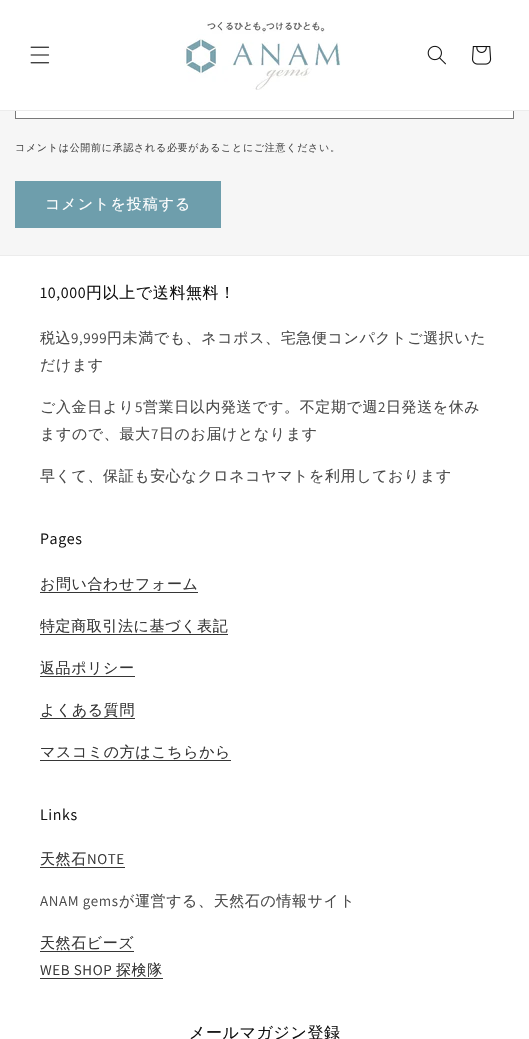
#include "include/core/SkBlurTypes.h"
#include "include/core/SkCanvas.h"
#include "include/core/SkData.h"
#include "include/core/SkFont.h"
#include "include/core/SkFontMgr.h"
#include "include/core/SkImage.h"
#include "include/core/SkMaskFilter.h"
#include "include/core/SkPaint.h"
#include "include/core/SkPathBuilder.h"
#include "include/core/SkTextBlob.h"
#include "include/effects/SkDashPathEffect.h"
#include "include/effects/SkGradientShader.h"
#include "include/utils/SkParsePath.h"

extern sk_sp<SkFontMgr> fontMgr;

static SkFont font(const char* family, int weight, float size, bool italic = false) {
    SkFontStyle style(weight, SkFontStyle::kNormal_Width,
        italic ? SkFontStyle::kItalic_Slant : SkFontStyle::kUpright_Slant);
    SkFont result(fontMgr->matchFamilyStyle(family, style), size);
    result.setSubpixel(true);
    return result;
}

static void drawTracked(SkCanvas* canvas, const char* s, float x, float y, const SkFont& font, const SkPaint& ink, float letter, float word) {
    std::vector<SkGlyphID> glyphs(font.countText(s, strlen(s), SkTextEncoding::kUTF8));
    std::vector<float> xs(glyphs.size());
    font.textToGlyphs(s, strlen(s), SkTextEncoding::kUTF8, glyphs);
    font.getXPos(glyphs, xs, x);
    float extra = 0;
    for (size_t i = 0; i < glyphs.size(); i++) {
        xs[i] += extra;
        extra += letter + word * (glyphs[i] == font.unicharToGlyph(' '));
    }
    canvas->drawTextBlob(SkTextBlob::MakeFromPosHGlyphs(glyphs, xs, y, font), 0, 0, ink);
}

static void fillRect(SkCanvas* canvas, float x, float y, float w, float h, SkColor color) {
    SkPaint ink(SkColor4f::FromColor(color));
    ink.setAntiAlias(true);
    canvas->drawRect(SkRect::MakeXYWH(x, y, w, h), ink);
}

static void drawPhoto(SkCanvas* canvas, const char* path, float x, float y, float w, float h) {
    auto image = SkImages::DeferredFromEncodedData(SkData::MakeFromFileName(path));
    canvas->drawImageRect(image, SkRect::MakeXYWH(x, y, w, h), SkSamplingOptions());
}

void draw(SkCanvas* canvas) {
    SkPaint paint;
    paint.setAntiAlias(true);
    canvas->clear(0xFFFFFFFF);
    fillRect(canvas, 0, 111, 529, 144, 0xFFF6F6F6);
    fillRect(canvas, 16, 111, 497, 7, 0xFFFFFFFF);
    paint.setStroke(true);
    paint.setStrokeWidth(1);
    paint.setColor(0xFF797979);
    canvas->drawRect(SkRect::MakeXYWH(15.5f, 17.5f, 498, 101), paint);
    fillRect(canvas, 15, 17, 499, 93, 0xFFFFFFFF);
    fillRect(canvas, 0, 110, 529, 1, 0xFFECECEC);
    drawPhoto(canvas, "assets/img1.png", 30, 46, 20, 18);
    drawPhoto(canvas, "assets/img2.png", 180, 22, 161, 68);
    drawPhoto(canvas, "assets/img3.png", 427, 45, 19, 20);
    drawPhoto(canvas, "assets/img4.png", 472, 46, 20, 19);
    SkFont font1 = font("WenQuanYi Zen Hei", 500, 10);
    paint.setStroke(false);
    paint.setColor(0xFF4B4B4B);
    drawTracked(canvas, "コメントは公開前に承認される必要があることにご注意ください。", 15, 151, font1, paint, 0.7f, 0);
    fillRect(canvas, 15, 181, 206, 47, 0xFF6E9EAC);
    SkFont font2 = font("WenQuanYi Zen Hei", 500, 15);
    paint.setColor(0xFFFFFFFF);
    drawTracked(canvas, "コメントを投稿する", 45, 209, font2, paint, 1, 0);
    fillRect(canvas, 0, 255, 529, 1, 0xFFECECEC);
    SkFont font3 = font("Assistant", 400, 16);
    paint.setColor(0xFF121212);
    drawTracked(canvas, "10,000", 40, 298, font3, paint, 0.6f, 0);
    SkFont font4 = font("WenQuanYi Zen Hei", 500, 16);
    drawTracked(canvas, "円以上で送料無料！", 86, 298, font4, paint, 0.6f, 0);
    paint.setColor(0xFF4B4B4B);
    drawTracked(canvas, "税込", 40, 343, font2, paint, 0.6f, 0);
    SkFont font5 = font("Assistant", 400, 15);
    drawTracked(canvas, "9,999", 71, 343, font5, paint, 0.6f, 0);
    drawTracked(canvas, "円未満でも、ネコポス、宅急便コンパクトご選択いた", 107, 343, font2, paint, 0.6f, 0);
    drawTracked(canvas, "だけます", 40, 370, font2, paint, 0.6f, 0);
    drawTracked(canvas, "ご入金日より", 40, 412, font2, paint, 0.6f, 0);
    drawTracked(canvas, "5", 135, 412, font5, paint, 0.6f, 0);
    drawTracked(canvas, "営業日以内発送です。不定期で週", 143, 412, font2, paint, 0.6f, 0);
    drawTracked(canvas, "2", 378, 412, font5, paint, 0.6f, 0);
    drawTracked(canvas, "日発送を休み", 386, 412, font2, paint, 0.6f, 0);
    drawTracked(canvas, "ますので、最大", 40, 439, font2, paint, 0.6f, 0);
    drawTracked(canvas, "7", 151, 439, font5, paint, 0.6f, 0);
    drawTracked(canvas, "日のお届けとなります", 159, 439, font2, paint, 0.6f, 0);
    drawTracked(canvas, "早くて、保証も安心なクロネコヤマトを利用しております", 40, 481, font2, paint, 0.6f, 0);
    paint.setColor(0xFF121212);
    drawTracked(canvas, "Pages", 40, 544, font3, paint, 0.6f, 0);
    paint.setColor(0xFF363636);
    drawTracked(canvas, "お問い合わせフォーム", 40, 589, font2, paint, 0.6f, 0);
    fillRect(canvas, 40, 592, 158, 1, 0xFF363636);
    drawTracked(canvas, "特定商取引法に基づく表記", 40, 631, font2, paint, 0.6f, 0);
    fillRect(canvas, 40, 634, 188, 1, 0xFF363636);
    drawTracked(canvas, "返品ポリシー", 40, 673, font2, paint, 0.6f, 0);
    fillRect(canvas, 40, 676, 95, 1, 0xFF363636);
    drawTracked(canvas, "よくある質問", 40, 715, font2, paint, 0.6f, 0);
    fillRect(canvas, 40, 718, 95, 1, 0xFF363636);
    drawTracked(canvas, "マスコミの方はこちらから", 40, 757, font2, paint, 0.6f, 0);
    fillRect(canvas, 40, 760, 191, 1, 0xFF363636);
    paint.setColor(0xFF121212);
    drawTracked(canvas, "Links", 40, 820, font3, paint, 0.6f, 0);
    paint.setColor(0xFF363636);
    drawTracked(canvas, "天然石", 40, 864, font2, paint, 0.6f, 0);
    fillRect(canvas, 40, 867, 85, 1, 0xFF363636);
    drawTracked(canvas, "NOTE", 87, 864, font5, paint, 0.6f, 0);
    paint.setColor(0xFF4B4B4B);
    drawTracked(canvas, "ANAM gems", 40, 906, font5, paint, 0.6f, 0);
    drawTracked(canvas, "が運営する、天然石の情報サイト", 119, 906, font2, paint, 0.6f, 0);
    paint.setColor(0xFF363636);
    drawTracked(canvas, "天然石ビーズ", 40, 948, font2, paint, 0.6f, 0);
    fillRect(canvas, 40, 951, 94, 1, 0xFF363636);
    drawTracked(canvas, "WEB SHOP", 40, 975, font5, paint, 0.6f, 0);
    fillRect(canvas, 40, 978, 123, 1, 0xFF363636);
    drawTracked(canvas, "探検隊", 116, 975, font2, paint, 0.6f, 0);
    paint.setColor(0xFF121212);
    drawTracked(canvas, "メールマガジン登録", 189, 1038, font4, paint, 0.6f, 0);
}
